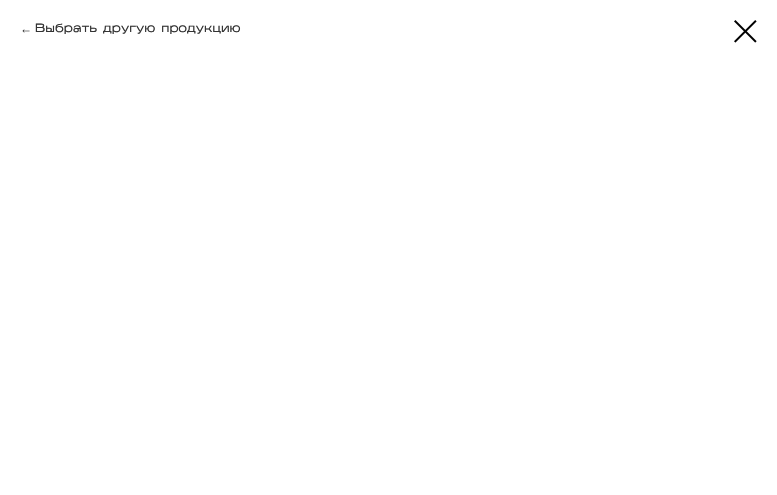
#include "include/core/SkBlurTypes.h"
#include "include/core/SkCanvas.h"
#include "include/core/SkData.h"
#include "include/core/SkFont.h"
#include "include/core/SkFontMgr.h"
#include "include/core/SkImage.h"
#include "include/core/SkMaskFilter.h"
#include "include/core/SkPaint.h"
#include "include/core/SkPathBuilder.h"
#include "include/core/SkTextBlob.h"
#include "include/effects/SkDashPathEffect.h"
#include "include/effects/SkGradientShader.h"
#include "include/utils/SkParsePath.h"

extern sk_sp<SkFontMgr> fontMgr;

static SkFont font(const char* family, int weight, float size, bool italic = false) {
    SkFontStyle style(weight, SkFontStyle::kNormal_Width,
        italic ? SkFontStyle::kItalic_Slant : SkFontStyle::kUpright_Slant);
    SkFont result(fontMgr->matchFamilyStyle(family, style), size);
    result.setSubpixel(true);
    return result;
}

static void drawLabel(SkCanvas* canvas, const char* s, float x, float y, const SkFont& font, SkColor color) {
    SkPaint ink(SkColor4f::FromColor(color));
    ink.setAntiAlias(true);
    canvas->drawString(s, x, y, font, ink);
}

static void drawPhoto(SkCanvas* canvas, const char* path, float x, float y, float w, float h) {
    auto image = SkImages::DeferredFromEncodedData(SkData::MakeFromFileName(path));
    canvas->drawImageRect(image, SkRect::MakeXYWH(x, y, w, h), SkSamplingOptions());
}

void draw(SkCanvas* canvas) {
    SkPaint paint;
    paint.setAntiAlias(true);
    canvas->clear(0xFFFFFFFF);
    SkFont font1 = font("Liberation Sans", 400, 12);
    drawLabel(canvas, "←", 20, 33, font1, 0xFF333333);
    SkFont font2 = font("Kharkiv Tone", 400, 12);
    drawLabel(canvas, "Выбрать другую продукцию", 35, 32, font2, 0xFF333333);
    drawPhoto(canvas, "assets/img1.png", 734, 20, 23, 23);
}
